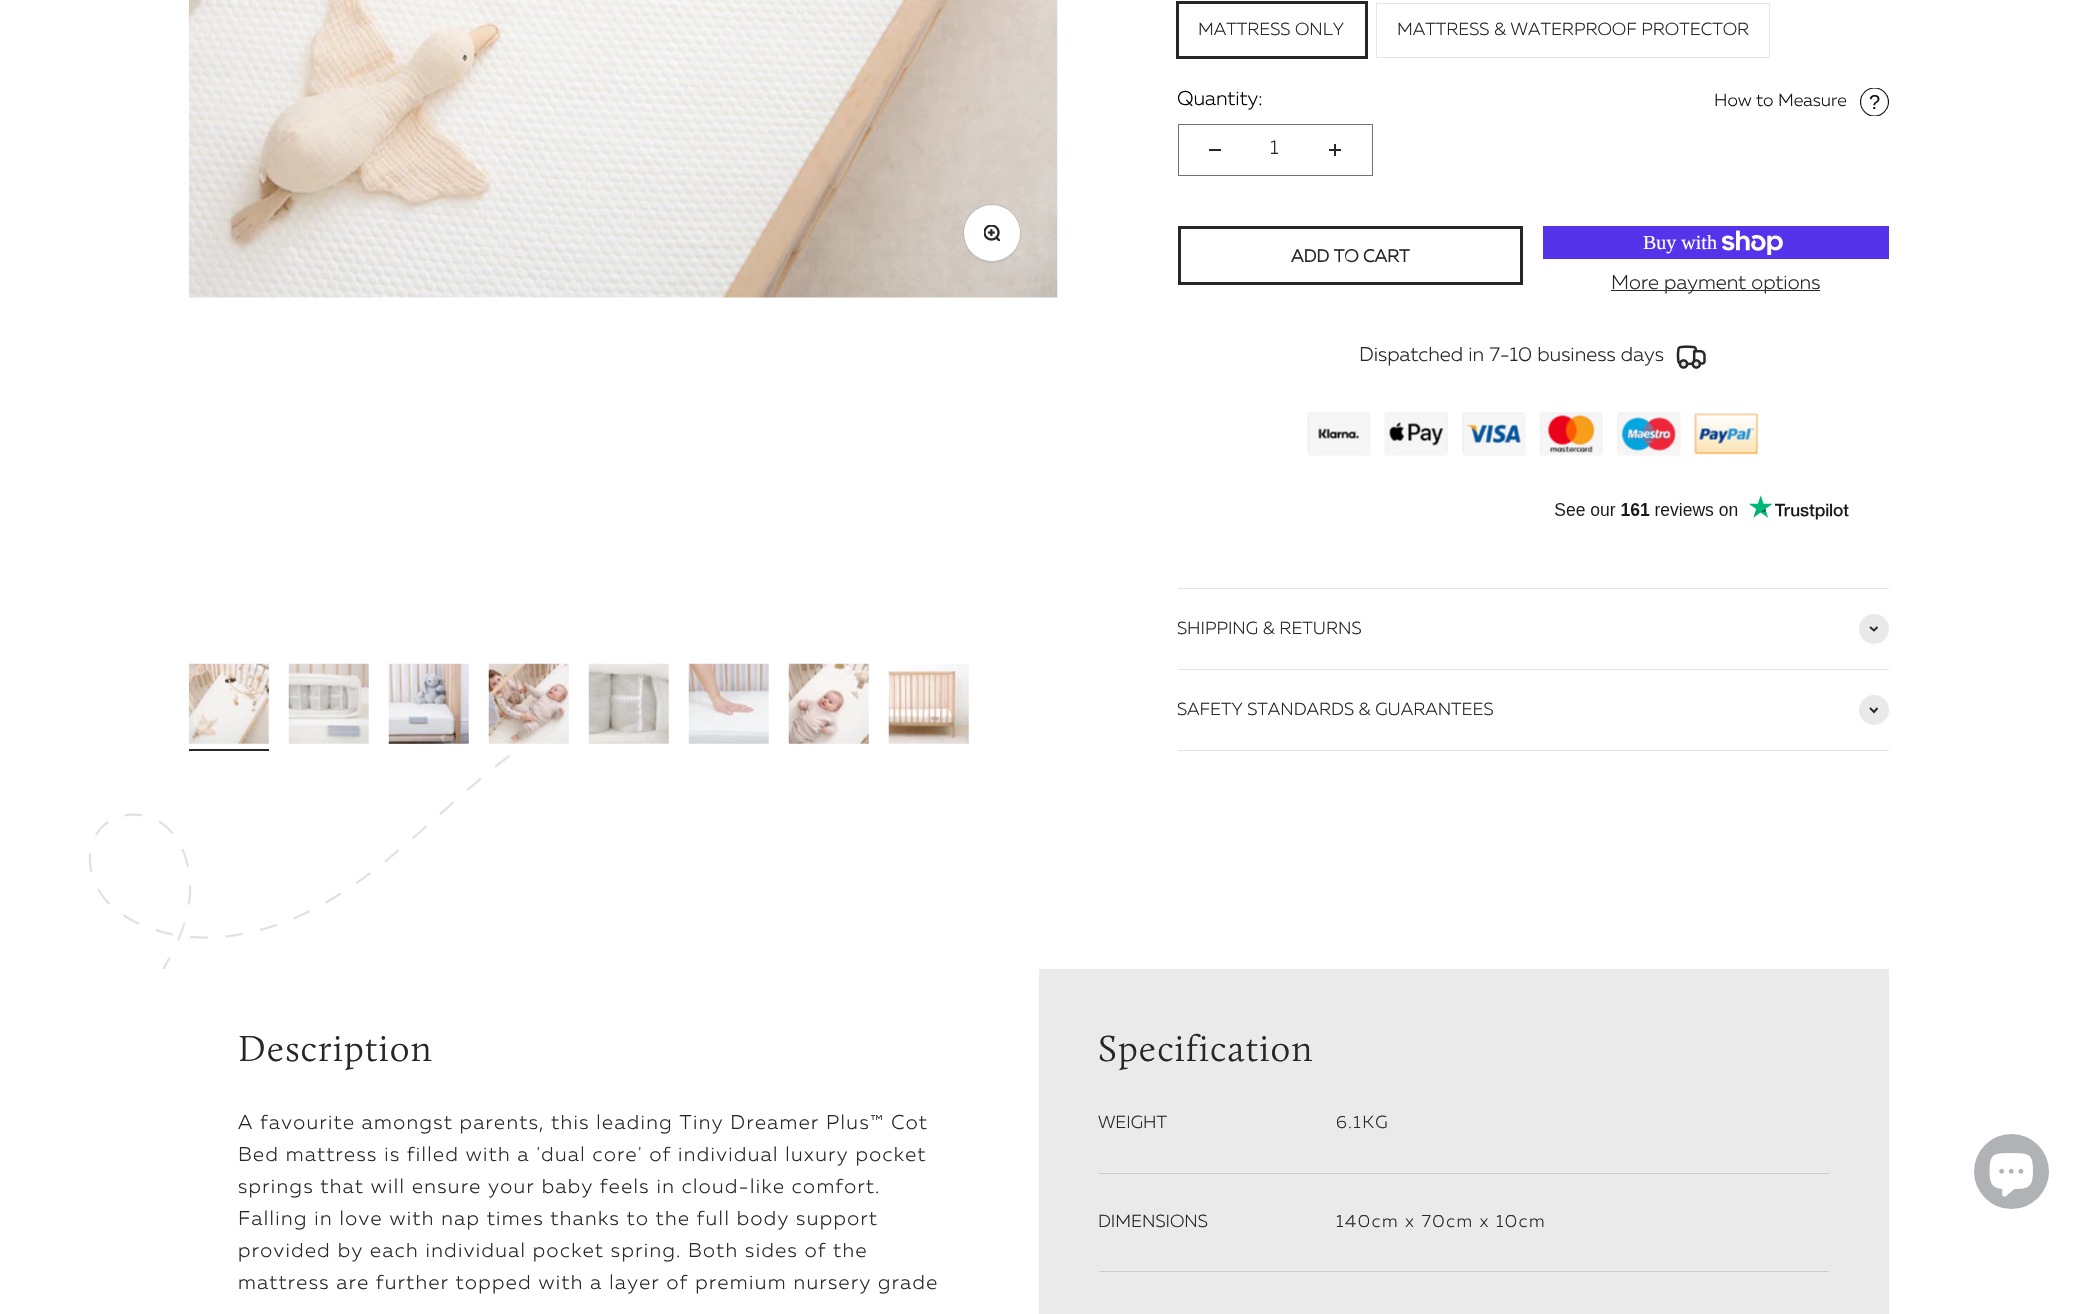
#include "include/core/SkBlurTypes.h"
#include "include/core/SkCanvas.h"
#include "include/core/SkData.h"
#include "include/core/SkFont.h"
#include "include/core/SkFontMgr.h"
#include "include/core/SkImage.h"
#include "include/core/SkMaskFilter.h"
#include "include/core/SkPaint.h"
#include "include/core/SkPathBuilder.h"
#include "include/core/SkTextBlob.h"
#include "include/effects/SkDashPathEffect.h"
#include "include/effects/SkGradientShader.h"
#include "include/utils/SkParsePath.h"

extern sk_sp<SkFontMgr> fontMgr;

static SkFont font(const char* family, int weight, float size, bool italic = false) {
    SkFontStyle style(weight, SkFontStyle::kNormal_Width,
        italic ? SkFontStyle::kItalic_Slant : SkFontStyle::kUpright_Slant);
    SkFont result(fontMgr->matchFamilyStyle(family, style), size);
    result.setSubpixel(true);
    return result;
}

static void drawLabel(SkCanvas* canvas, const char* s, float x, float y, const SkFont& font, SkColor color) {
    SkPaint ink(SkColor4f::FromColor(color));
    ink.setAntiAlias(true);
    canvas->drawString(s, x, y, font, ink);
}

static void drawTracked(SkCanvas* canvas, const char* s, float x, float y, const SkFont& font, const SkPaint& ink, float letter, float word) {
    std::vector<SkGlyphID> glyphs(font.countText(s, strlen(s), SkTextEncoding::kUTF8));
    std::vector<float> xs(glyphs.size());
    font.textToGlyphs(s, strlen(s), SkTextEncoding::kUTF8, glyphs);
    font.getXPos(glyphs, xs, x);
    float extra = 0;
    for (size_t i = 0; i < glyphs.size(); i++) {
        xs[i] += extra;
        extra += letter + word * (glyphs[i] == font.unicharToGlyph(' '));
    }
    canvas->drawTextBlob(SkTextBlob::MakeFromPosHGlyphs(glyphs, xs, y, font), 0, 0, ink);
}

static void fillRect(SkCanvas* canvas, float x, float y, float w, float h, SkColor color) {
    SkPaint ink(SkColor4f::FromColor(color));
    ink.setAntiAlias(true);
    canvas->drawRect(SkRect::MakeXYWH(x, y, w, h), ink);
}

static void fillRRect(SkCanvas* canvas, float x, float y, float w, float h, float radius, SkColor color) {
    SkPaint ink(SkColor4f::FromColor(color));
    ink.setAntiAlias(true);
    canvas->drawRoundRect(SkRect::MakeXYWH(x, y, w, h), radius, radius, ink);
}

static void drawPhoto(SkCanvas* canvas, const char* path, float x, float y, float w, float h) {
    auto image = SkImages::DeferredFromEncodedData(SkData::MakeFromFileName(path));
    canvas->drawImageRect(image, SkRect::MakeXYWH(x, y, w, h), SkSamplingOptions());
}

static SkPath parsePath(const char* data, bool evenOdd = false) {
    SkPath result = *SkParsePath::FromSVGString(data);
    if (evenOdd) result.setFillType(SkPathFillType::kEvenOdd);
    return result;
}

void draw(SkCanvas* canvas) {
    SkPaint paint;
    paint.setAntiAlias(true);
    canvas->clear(0xFFFFFFFF);
    drawPhoto(canvas, "assets/img1.png", 88, 755, 422, 214);
    drawPhoto(canvas, "assets/img2.png", 188, 0, 870, 298);
    paint.setStroke(true);
    paint.setStrokeWidth(1);
    paint.setColor(0x1F272727);
    canvas->drawRoundRect(SkRect::MakeXYWH(963.5f, 204.5f, 57, 58), 28.5f, 28.5f, paint);
    paint.setStroke(false);
    paint.setColor(0xFFFFFFFF);
    canvas->drawCircle(992, 233, 28, paint);
    drawPhoto(canvas, "assets/img3.png", 984, 225, 16, 16);
    drawPhoto(canvas, "assets/img4.png", 188, 663, 81, 81);
    fillRect(canvas, 189, 749, 80, 2, 0xFF272727);
    drawPhoto(canvas, "assets/img5.png", 288, 663, 81, 81);
    drawPhoto(canvas, "assets/img6.png", 388, 663, 81, 81);
    drawPhoto(canvas, "assets/img7.png", 488, 663, 81, 81);
    drawPhoto(canvas, "assets/img8.png", 588, 663, 81, 81);
    drawPhoto(canvas, "assets/img9.png", 688, 663, 81, 81);
    drawPhoto(canvas, "assets/img10.png", 788, 663, 81, 81);
    drawPhoto(canvas, "assets/img11.png", 888, 664, 81, 80);
    paint.setStroke(true);
    paint.setStrokeWidth(3);
    paint.setColor(0xFF272727);
    canvas->drawRect(SkRect::MakeXYWH(1177.5f, 2.5f, 189, 55), paint);
    SkFont font1 = font("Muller", 300, 17.5f);
    drawLabel(canvas, "MATTRESS ONLY", 1198, 35, font1, 0xFF272727);
    paint.setStrokeWidth(1);
    paint.setColor(0xFFE5E5E5);
    canvas->drawRect(SkRect::MakeXYWH(1376.5f, 3.5f, 393, 54), paint);
    drawLabel(canvas, "MATTRESS & WATERPROOF PROTECTOR", 1397, 35, font1, 0xFF272727);
    SkFont font2 = font("Muller", 300, 20);
    drawLabel(canvas, "Quantity:", 1177, 105, font2, 0xFF000000);
    paint.setColor(0xFF707070);
    canvas->drawRect(SkRect::MakeXYWH(1178.5f, 124.5f, 194, 51), paint);
    fillRect(canvas, 1209, 149, 12, 2, 0xFF272727);
    drawLabel(canvas, "1", 1270, 154, font2, 0xFF272727);
    fillRect(canvas, 1334, 144, 2, 12, 0xFF272727);
    fillRect(canvas, 1329, 149, 12, 2, 0xFF272727);
    drawLabel(canvas, "How to Measure", 1714, 106, font1, 0xFF111111);
    SkFont font3 = font("Liberation Sans", 400, 20);
    drawLabel(canvas, "?", 1869, 109, font3, 0xFF111111);
    canvas->save();
    canvas->clipRect(SkRect::MakeXYWH(1860, 88, 29, 28));
    paint.setStrokeWidth(1.2f);
    paint.setColor(0xFF111111);
    canvas->drawCircle(1874.5f, 102, 14, paint);
    canvas->restore();
    paint.setStrokeWidth(3);
    paint.setColor(0xFF272727);
    canvas->drawRect(SkRect::MakeXYWH(1179.5f, 227.5f, 342, 56), paint);
    SkFont font4 = font("Muller", 700, 17.5f);
    drawLabel(canvas, "ADD TO CART", 1291, 262, font4, 0xFF272727);
    fillRRect(canvas, 1346, 253, 8, 7, 3.5f, 0xFFFFFFFF);
    fillRect(canvas, 1543, 226, 346, 33, 0xFF5433EB);
    SkFont font5 = font("Liberation Serif", 400, 20);
    drawLabel(canvas, "Buy with", 1643, 249, font5, 0xFFFFFFFF);
    drawPhoto(canvas, "assets/img12.png", 1721, 230, 62, 25);
    fillRect(canvas, 1611, 290, 209, 1, 0xFF272727);
    drawLabel(canvas, "More payment options", 1611, 289, font2, 0xFF272727);
    drawLabel(canvas, "Dispatched in 7-10 business days", 1359, 361, font2, 0xFF272727);
    drawPhoto(canvas, "assets/img13.png", 1676, 345, 30, 24);
    drawPhoto(canvas, "assets/img14.png", 1307, 412, 64, 44);
    drawPhoto(canvas, "assets/img15.png", 1384, 412, 64, 44);
    drawPhoto(canvas, "assets/img16.png", 1462, 412, 64, 44);
    drawPhoto(canvas, "assets/img17.png", 1539, 412, 64, 44);
    drawPhoto(canvas, "assets/img18.png", 1617, 412, 64, 44);
    drawPhoto(canvas, "assets/img19.png", 1694, 413, 64, 42);
    drawPhoto(canvas, "assets/img20.png", 1555, 495, 294, 25);
    fillRect(canvas, 1178, 588, 711, 1, 0xFFE5E5E5);
    fillRect(canvas, 1178, 669, 711, 1, 0xFFE5E5E5);
    drawLabel(canvas, "SHIPPING & RETURNS", 1177, 634, font1, 0xFF272727);
    paint.setStroke(false);
    paint.setColor(0xFFE9E9E9);
    canvas->drawCircle(1874, 629, 15, paint);
    paint.setStroke(true);
    paint.setStrokeWidth(1.9f);
    paint.setColor(0xFF272727);
    canvas->drawPath(parsePath("M1870 627L1874 630.5L1877.5 627"), paint);
    fillRect(canvas, 1178, 750, 711, 1, 0xFFE5E5E5);
    drawLabel(canvas, "SAFETY STANDARDS & GUARANTEES", 1177, 715, font1, 0xFF272727);
    paint.setStroke(false);
    paint.setColor(0xFFE9E9E9);
    canvas->drawCircle(1874, 710, 15, paint);
    paint.setStroke(true);
    paint.setColor(0xFF272727);
    canvas->drawPath(parsePath("M1870 708L1874 712L1877.5 708"), paint);
    SkFont font6 = font("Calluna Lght", 300, 37.5f);
    paint.setStroke(false);
    drawTracked(canvas, "Description", 238, 1061, font6, paint, 1.1f, 0);
    drawTracked(canvas, "A favourite amongst parents, this leading Tiny Dreamer Plus™ Cot", 238, 1129, font2, paint, 1.4f, 0);
    drawTracked(canvas, "Bed mattress is filled with a 'dual core' of individual luxury pocket", 238, 1161, font2, paint, 1.4f, 0);
    drawTracked(canvas, "springs that will ensure your baby feels in cloud-like comfort.", 238, 1193, font2, paint, 1.4f, 0);
    drawTracked(canvas, "Falling in love with nap times thanks to the full body support", 238, 1225, font2, paint, 1.4f, 0);
    drawTracked(canvas, "provided by each individual pocket spring. Both sides of the", 238, 1257, font2, paint, 1.4f, 0);
    drawTracked(canvas, "mattress are further topped with a layer of premium nursery grade", 238, 1289, font2, paint, 1.4f, 0);
    fillRect(canvas, 1039, 969, 850, 345, 0xFFEAEAEA);
    drawTracked(canvas, "Specification", 1098, 1061, font6, paint, 1.1f, 0);
    fillRect(canvas, 1099, 1173, 730, 1, 0xFFCCCCCC);
    drawLabel(canvas, "WEIGHT", 1098, 1128, font1, 0xFF272727);
    drawTracked(canvas, "6.1KG", 1336, 1128, font1, paint, 1.6f, 0);
    fillRect(canvas, 1099, 1271, 730, 1, 0xFFCCCCCC);
    drawLabel(canvas, "DIMENSIONS", 1098, 1227, font1, 0xFF272727);
    drawTracked(canvas, "140cm x 70cm x 10cm", 1336, 1227, font1, paint, 1.6f, 0);
    paint.setColor(0xFFB0B2B5);
    canvas->drawCircle(2011.5f, 1171.5f, 37.5f, paint);
    drawPhoto(canvas, "assets/img21.png", 1989, 1153, 44, 44);
}
